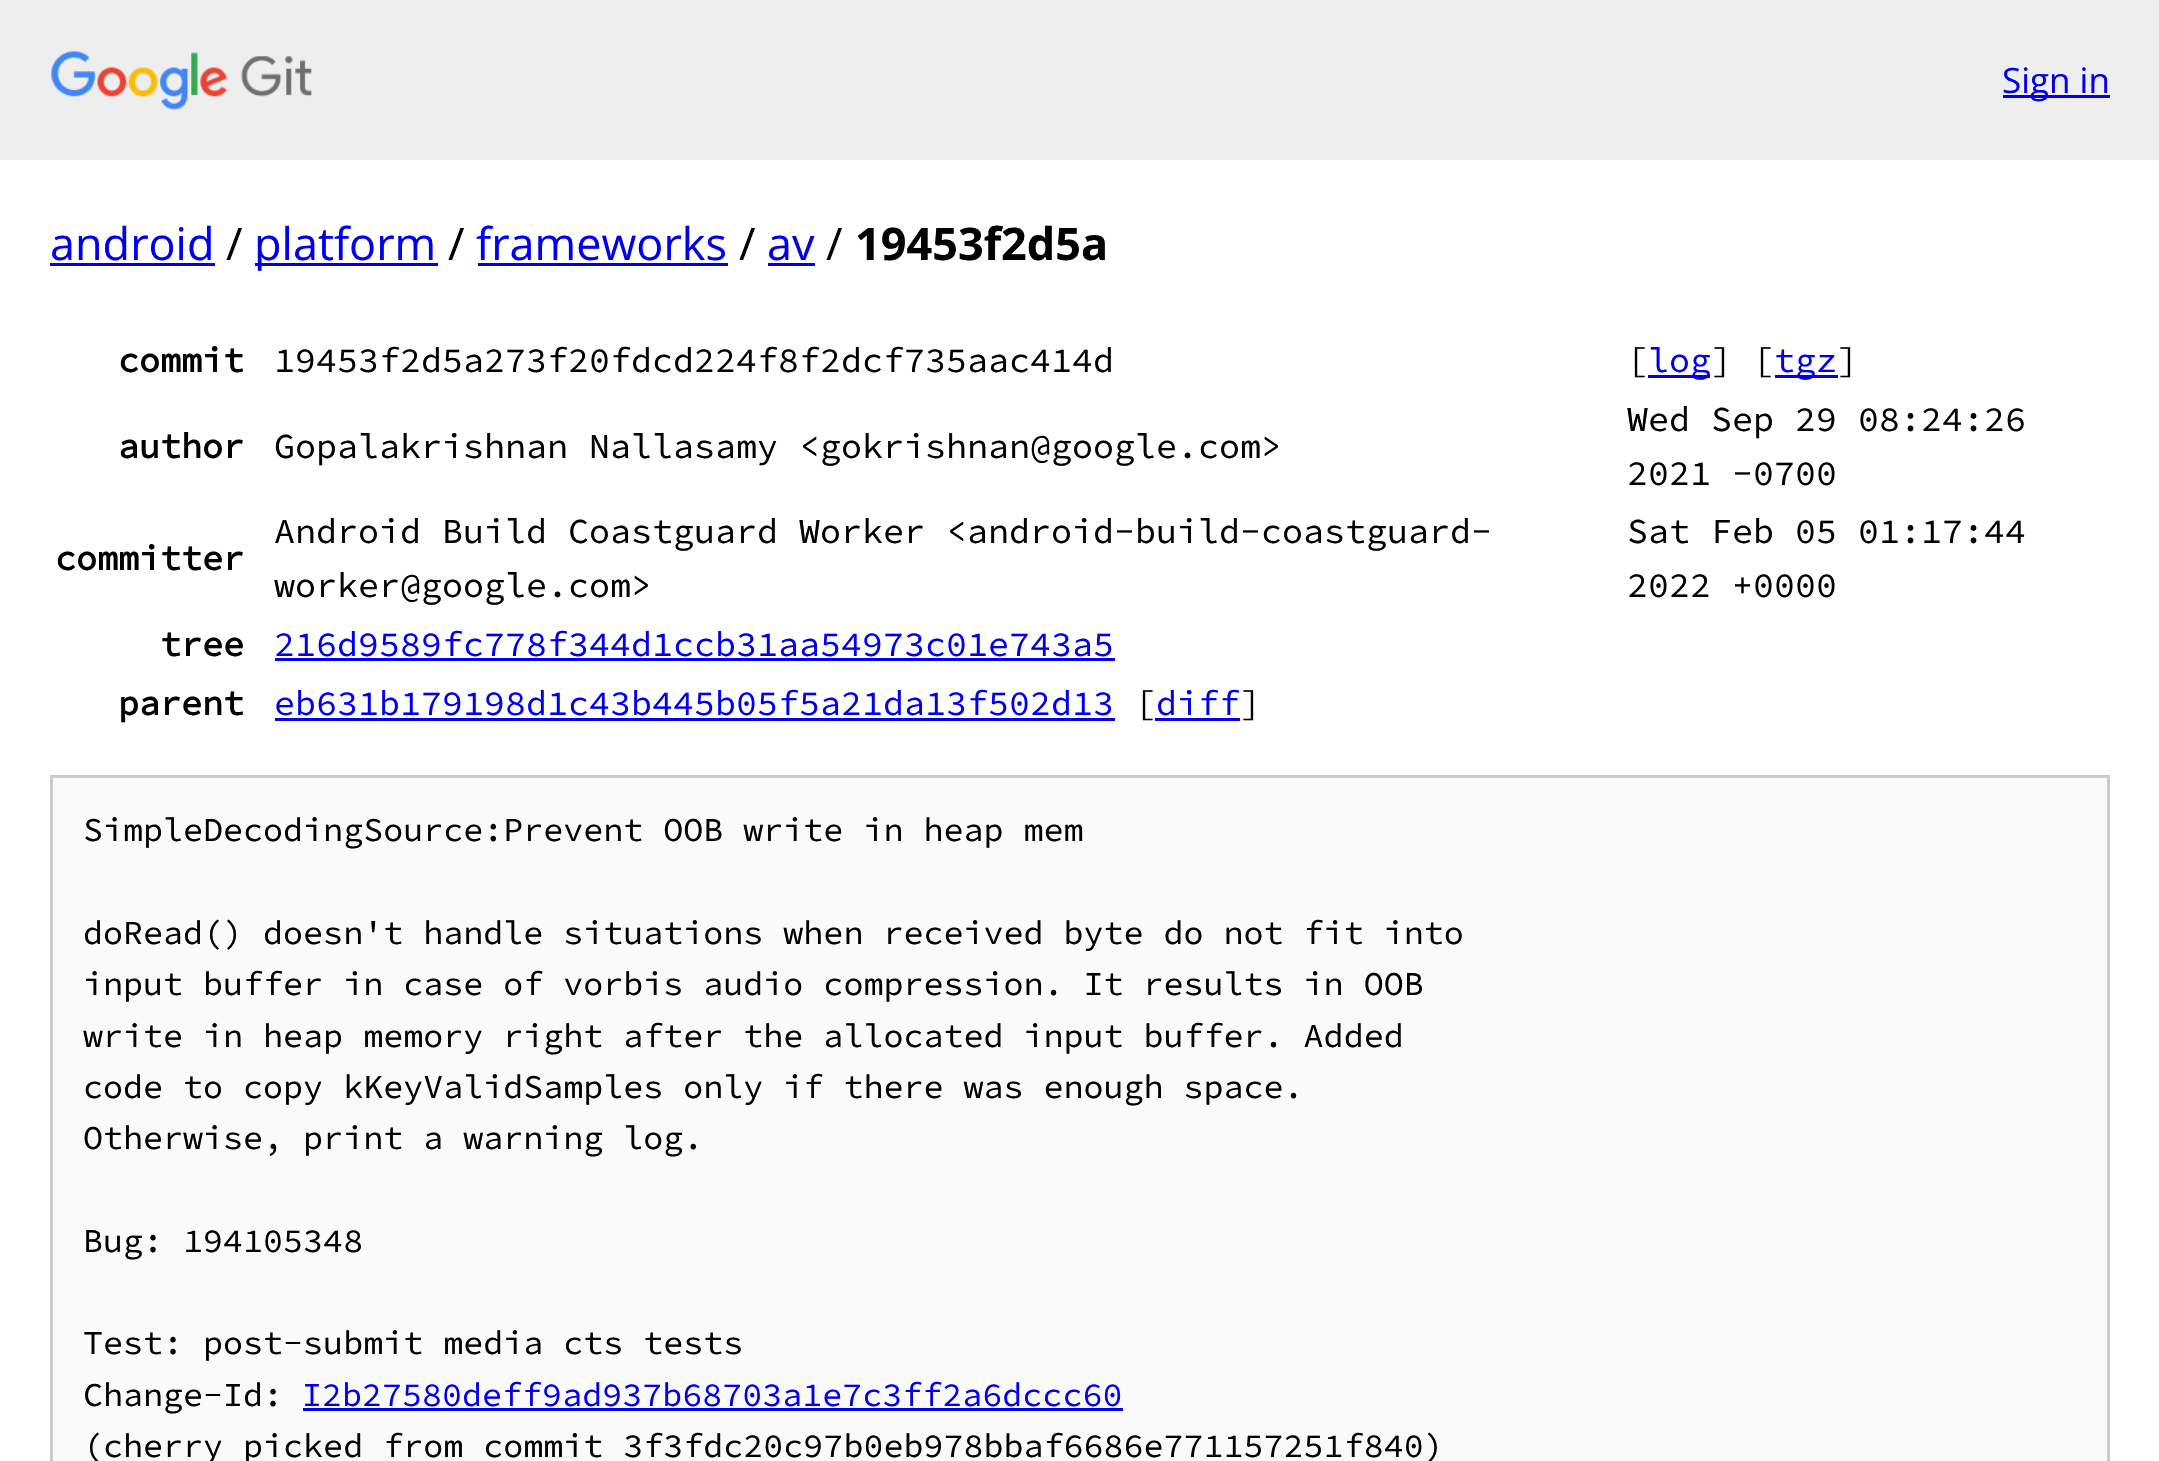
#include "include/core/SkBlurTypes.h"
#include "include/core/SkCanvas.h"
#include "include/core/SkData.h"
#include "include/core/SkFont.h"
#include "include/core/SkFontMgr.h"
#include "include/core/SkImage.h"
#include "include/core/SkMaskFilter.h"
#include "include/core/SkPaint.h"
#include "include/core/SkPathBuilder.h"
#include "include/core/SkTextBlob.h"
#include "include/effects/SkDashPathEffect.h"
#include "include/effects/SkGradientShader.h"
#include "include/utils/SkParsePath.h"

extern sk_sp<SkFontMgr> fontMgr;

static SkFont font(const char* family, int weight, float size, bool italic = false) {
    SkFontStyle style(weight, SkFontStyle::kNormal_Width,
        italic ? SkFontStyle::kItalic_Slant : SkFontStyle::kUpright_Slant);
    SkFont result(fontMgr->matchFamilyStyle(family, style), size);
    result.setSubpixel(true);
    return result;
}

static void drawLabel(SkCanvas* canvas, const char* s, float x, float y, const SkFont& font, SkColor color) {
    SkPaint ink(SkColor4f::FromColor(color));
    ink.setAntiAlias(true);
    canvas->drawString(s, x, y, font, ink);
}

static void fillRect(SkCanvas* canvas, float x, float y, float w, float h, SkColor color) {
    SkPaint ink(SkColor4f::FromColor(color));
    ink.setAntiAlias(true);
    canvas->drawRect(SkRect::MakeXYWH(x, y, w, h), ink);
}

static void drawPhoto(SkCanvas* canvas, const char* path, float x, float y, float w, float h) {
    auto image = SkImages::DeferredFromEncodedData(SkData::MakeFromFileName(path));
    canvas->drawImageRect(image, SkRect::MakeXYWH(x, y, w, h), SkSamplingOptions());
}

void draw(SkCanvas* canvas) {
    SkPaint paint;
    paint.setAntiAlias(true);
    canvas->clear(0xFFFFFFFF);
    fillRect(canvas, 0, 0, 2159, 160, 0xFFEEEEEE);
    drawPhoto(canvas, "assets/img1.png", 51, 51, 261, 59);
    fillRect(canvas, 2003, 95, 107, 3, 0xFF0000EE);
    SkFont font1 = font("Open Sans", 400, 35);
    drawLabel(canvas, "Sign in", 2002, 93, font1, 0xFF0000EE);
    SkFont font2 = font("Open Sans", 400, 45);
    drawLabel(canvas, "android", 50, 260, font2, 0xFF0000EE);
    fillRect(canvas, 50, 263, 165, 3, 0xFF0000EE);
    drawLabel(canvas, "/", 226, 260, font2, 0xFF000000);
    fillRect(canvas, 255, 263, 183, 3, 0xFF0000EE);
    drawLabel(canvas, "platform", 254, 260, font2, 0xFF0000EE);
    drawLabel(canvas, "/", 448, 260, font2, 0xFF000000);
    drawLabel(canvas, "frameworks", 476, 260, font2, 0xFF0000EE);
    fillRect(canvas, 478, 263, 250, 3, 0xFF0000EE);
    drawLabel(canvas, "/", 739, 260, font2, 0xFF000000);
    drawLabel(canvas, "av", 767, 260, font2, 0xFF0000EE);
    fillRect(canvas, 768, 263, 47, 3, 0xFF0000EE);
    drawLabel(canvas, "/", 826, 260, font2, 0xFF000000);
    SkFont font3 = font("Open Sans", 700, 45);
    drawLabel(canvas, "19453f2d5a", 855, 260, font3, 0xFF000000);
    SkFont font4 = font("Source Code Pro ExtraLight", 700, 35);
    drawLabel(canvas, "commit", 118, 372, font4, 0xFF000000);
    SkFont font5 = font("Source Code Pro ExtraLight", 200, 35);
    drawLabel(canvas, "19453f2d5a273f20fdcd224f8f2dcf735aac414d", 274, 372, font5, 0xFF000000);
    drawLabel(canvas, "[", 1627, 372, font5, 0xFF000000);
    fillRect(canvas, 1648, 375, 62, 3, 0xFF0000EE);
    drawLabel(canvas, "log", 1648, 372, font5, 0xFF0000EE);
    drawLabel(canvas, "] [", 1711, 372, font5, 0xFF000000);
    fillRect(canvas, 1775, 375, 63, 3, 0xFF0000EE);
    drawLabel(canvas, "tgz", 1774, 372, font5, 0xFF0000EE);
    drawLabel(canvas, "]", 1837, 372, font5, 0xFF000000);
    drawLabel(canvas, "author", 118, 458, font4, 0xFF000000);
    drawLabel(canvas, "Gopalakrishnan Nallasamy <gokrishnan@google.com>", 274, 458, font5, 0xFF000000);
    drawLabel(canvas, "Wed Sep 29 08:24:26", 1627, 431, font5, 0xFF000000);
    drawLabel(canvas, "2021 -0700", 1627, 485, font5, 0xFF000000);
    drawLabel(canvas, "committer", 55, 570, font4, 0xFF000000);
    drawLabel(canvas, "Android Build Coastguard Worker <android-build-coastguard-", 274, 543, font5, 0xFF000000);
    drawLabel(canvas, "worker@google.com>", 274, 597, font5, 0xFF000000);
    drawLabel(canvas, "Sat Feb 05 01:17:44", 1627, 543, font5, 0xFF000000);
    drawLabel(canvas, "2022 +0000", 1627, 597, font5, 0xFF000000);
    drawLabel(canvas, "tree", 160, 656, font4, 0xFF000000);
    drawLabel(canvas, "216d9589fc778f344d1ccb31aa54973c01e743a5", 274, 656, font5, 0xFF0000EE);
    fillRect(canvas, 275, 658, 840, 3, 0xFF0000EE);
    drawLabel(canvas, "parent", 118, 715, font4, 0xFF000000);
    drawLabel(canvas, "eb631b179198d1c43b445b05f5a21da13f502d13", 274, 715, font5, 0xFF0000EE);
    fillRect(canvas, 275, 718, 840, 3, 0xFF0000EE);
    drawLabel(canvas, "[", 1135, 715, font5, 0xFF000000);
    fillRect(canvas, 1155, 718, 85, 3, 0xFF0000EE);
    drawLabel(canvas, "diff", 1156, 715, font5, 0xFF0000EE);
    drawLabel(canvas, "]", 1240, 715, font5, 0xFF000000);
    paint.setColor(0xFFFAFAFA);
    canvas->drawRect(SkRect::MakeXYWH(51.5f, 776.5f, 2057, 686), paint);
    paint.setStroke(true);
    paint.setStrokeWidth(3);
    paint.setColor(0xFFCCCCCC);
    canvas->drawRect(SkRect::MakeXYWH(51.5f, 776.5f, 2057, 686), paint);
    SkFont font6 = font("Source Code Pro ExtraLight", 200, 33.35f);
    drawLabel(canvas, "SimpleDecodingSource:Prevent OOB write in heap mem", 83, 841, font6, 0xFF000000);
    drawLabel(canvas, "doRead() doesn't handle situations when received byte do not fit into", 83, 944, font6, 0xFF000000);
    drawLabel(canvas, "input buffer in case of vorbis audio compression. It results in OOB", 83, 995, font6, 0xFF000000);
    drawLabel(canvas, "write in heap memory right after the allocated input buffer. Added", 83, 1047, font6, 0xFF000000);
    drawLabel(canvas, "code to copy kKeyValidSamples only if there was enough space.", 83, 1098, font6, 0xFF000000);
    drawLabel(canvas, "Otherwise, print a warning log.", 83, 1149, font6, 0xFF000000);
    drawLabel(canvas, "Bug: 194105348", 83, 1252, font6, 0xFF000000);
    drawLabel(canvas, "Test: post-submit media cts tests", 83, 1354, font6, 0xFF000000);
    drawLabel(canvas, "Change-Id:", 83, 1406, font6, 0xFF000000);
    drawLabel(canvas, "I2b27580deff9ad937b68703a1e7c3ff2a6dccc60", 302, 1406, font6, 0xFF0000EE);
    fillRect(canvas, 303, 1408, 820, 3, 0xFF0000EE);
    drawLabel(canvas, "(cherry picked from commit 3f3fdc20c97b0eb978bbaf6686e771157251f840)", 83, 1457, font6, 0xFF000000);
}
